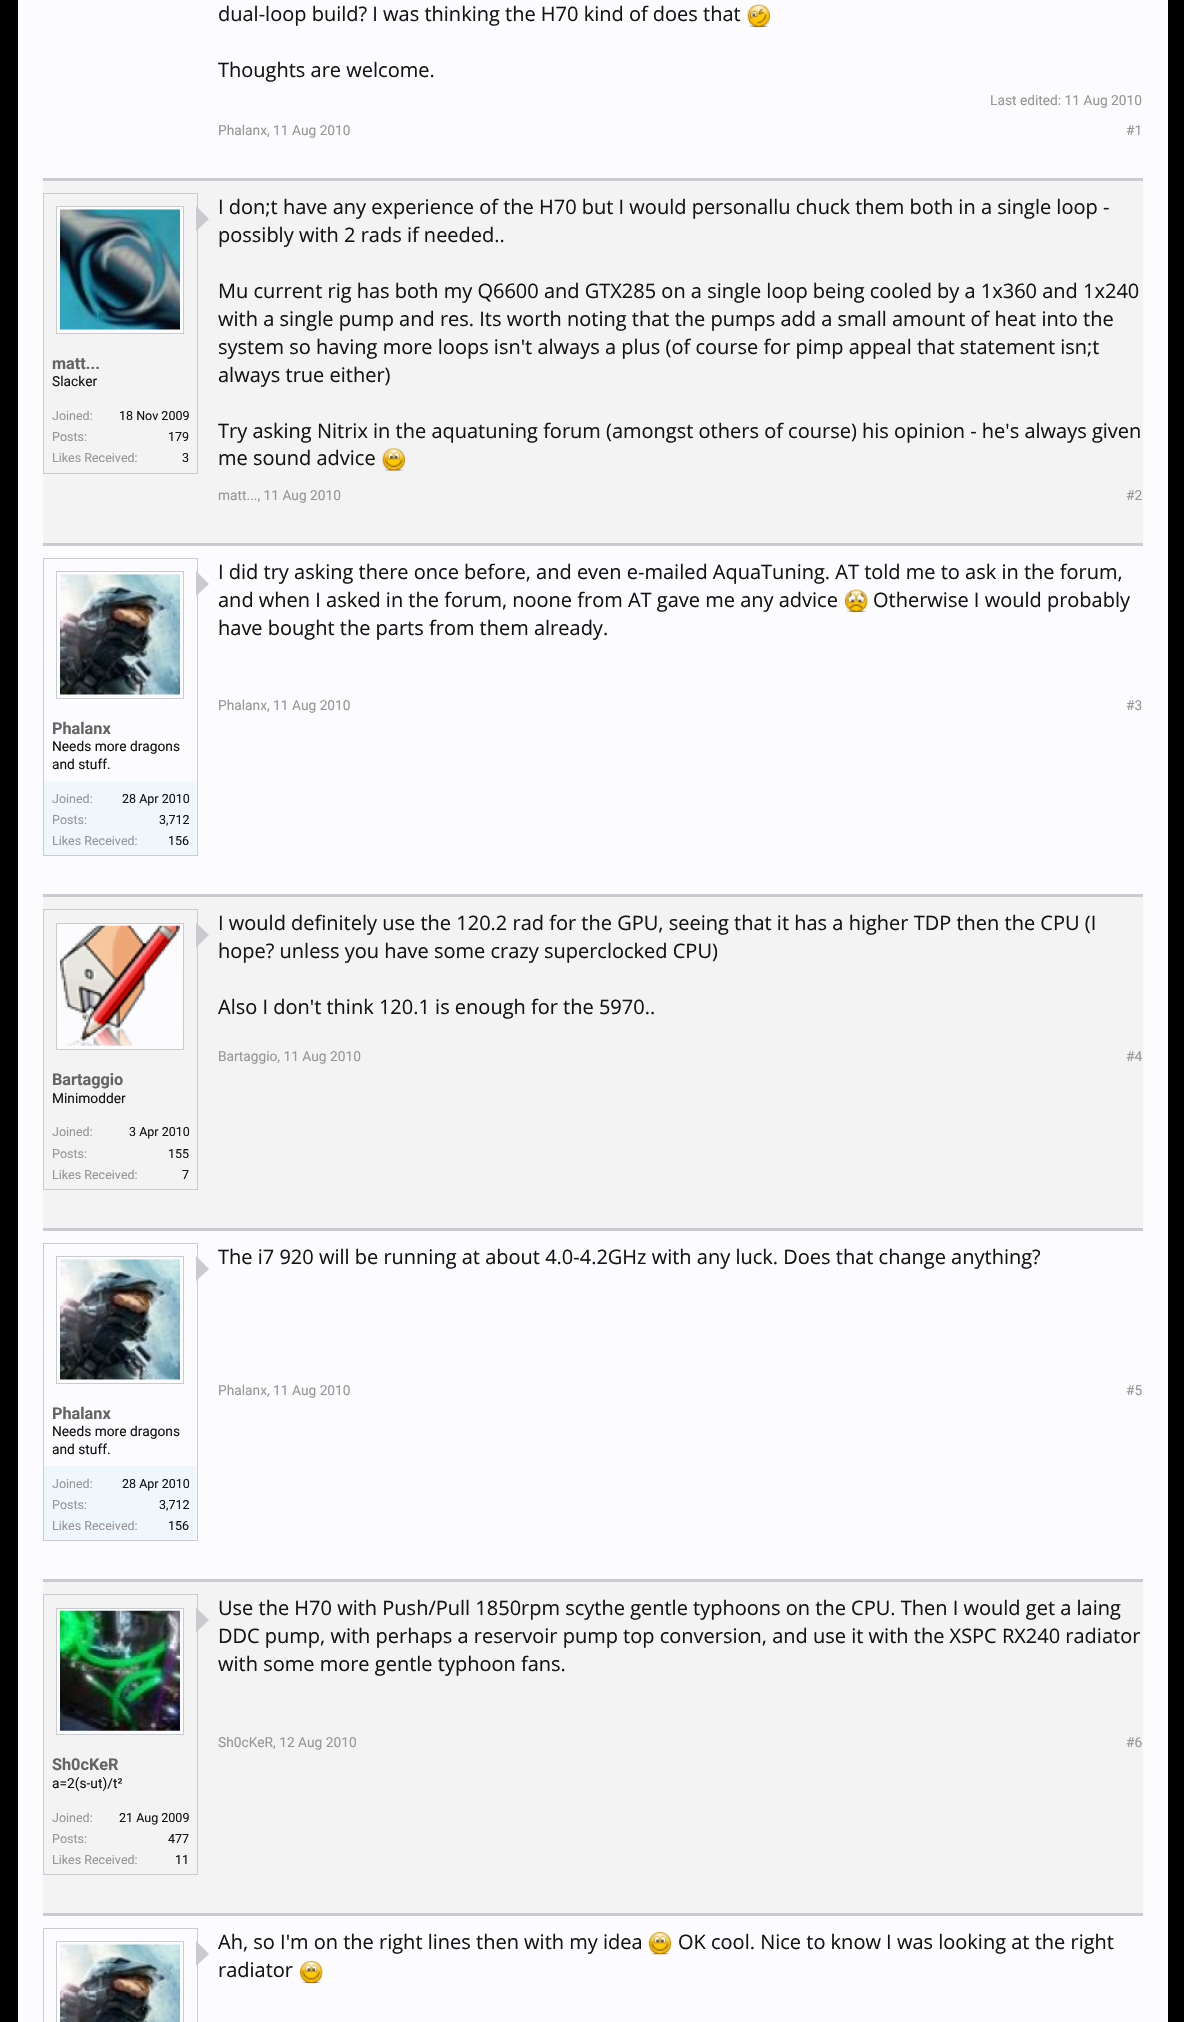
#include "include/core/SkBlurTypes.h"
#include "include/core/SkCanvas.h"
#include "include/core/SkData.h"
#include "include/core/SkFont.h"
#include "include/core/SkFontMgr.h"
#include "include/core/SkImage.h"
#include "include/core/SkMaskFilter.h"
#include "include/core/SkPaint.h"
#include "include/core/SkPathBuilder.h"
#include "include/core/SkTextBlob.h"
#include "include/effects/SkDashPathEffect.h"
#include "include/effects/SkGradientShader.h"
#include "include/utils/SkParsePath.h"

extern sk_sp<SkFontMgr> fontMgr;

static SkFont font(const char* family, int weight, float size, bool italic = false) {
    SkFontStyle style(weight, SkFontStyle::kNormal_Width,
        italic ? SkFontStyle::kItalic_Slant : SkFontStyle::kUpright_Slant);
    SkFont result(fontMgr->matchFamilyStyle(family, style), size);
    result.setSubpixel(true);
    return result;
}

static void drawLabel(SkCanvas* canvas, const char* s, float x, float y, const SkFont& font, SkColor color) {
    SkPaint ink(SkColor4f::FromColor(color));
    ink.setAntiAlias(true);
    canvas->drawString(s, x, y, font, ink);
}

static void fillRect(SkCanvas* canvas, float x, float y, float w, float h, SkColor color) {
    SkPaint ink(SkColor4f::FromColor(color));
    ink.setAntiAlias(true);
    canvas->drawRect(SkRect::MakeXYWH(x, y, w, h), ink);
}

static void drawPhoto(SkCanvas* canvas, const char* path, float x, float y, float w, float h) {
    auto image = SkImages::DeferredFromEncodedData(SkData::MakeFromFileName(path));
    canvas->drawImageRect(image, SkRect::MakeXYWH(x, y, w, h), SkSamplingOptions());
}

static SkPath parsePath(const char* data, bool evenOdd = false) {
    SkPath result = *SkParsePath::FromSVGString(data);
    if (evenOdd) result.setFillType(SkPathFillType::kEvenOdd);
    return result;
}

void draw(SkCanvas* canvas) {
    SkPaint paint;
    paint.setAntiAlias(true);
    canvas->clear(0xFF000000);
    fillRect(canvas, 18, 0, 1150, 2022, 0xFFFCFCFF);
    SkFont font1 = font("Open Sans", 400, 20);
    drawLabel(canvas, "dual-loop build? I was thinking the H70 kind of does that", 218, 21, font1, 0xFF141414);
    drawPhoto(canvas, "assets/img1.png", 747, 4, 23, 23);
    drawLabel(canvas, "Thoughts are welcome.", 218, 77, font1, 0xFF141414);
    SkFont font2 = font("Roboto", 400, 13.75f);
    drawLabel(canvas, "Last edited: 11 Aug 2010", 990, 105, font2, 0xFF969696);
    drawLabel(canvas, "Phalanx, 11 Aug 2010", 218, 135, font2, 0xFF969696);
    drawLabel(canvas, "#1", 1126, 135, font2, 0xFF969696);
    fillRect(canvas, 43, 181, 1100, 362, 0xFFF3F3F3);
    fillRect(canvas, 43, 178, 1100, 3, 0xFFCACBCF);
    paint.setStroke(true);
    paint.setStrokeWidth(1);
    paint.setColor(0xFFCACBCF);
    canvas->drawRect(SkRect::MakeXYWH(43.5f, 193.5f, 154, 280), paint);
    paint.setStroke(false);
    paint.setColor(0xFFFCFCFF);
    canvas->drawRect(SkRect::MakeXYWH(56.5f, 206.5f, 127, 127), paint);
    paint.setStroke(true);
    paint.setColor(0xFFCACBCF);
    canvas->drawRect(SkRect::MakeXYWH(56.5f, 206.5f, 127, 127), paint);
    drawPhoto(canvas, "assets/img2.png", 60, 209, 120, 121);
    paint.setStroke(false);
    canvas->drawPath(parsePath("M196 231V206L209 219Z"), paint);
    SkFont font3 = font("Roboto", 700, 16.25f);
    drawLabel(canvas, "matt...", 52, 369, font3, 0xFF646464);
    drawLabel(canvas, "Slacker", 52, 386, font2, 0xFF141414);
    SkFont font4 = font("Roboto", 400, 12.5f);
    drawLabel(canvas, "Joined:", 52, 420, font4, 0xFF969696);
    drawLabel(canvas, "18 Nov 2009", 119, 420, font4, 0xFF141414);
    drawLabel(canvas, "Posts:", 52, 441, font4, 0xFF969696);
    drawLabel(canvas, "179", 168, 441, font4, 0xFF141414);
    drawLabel(canvas, "Likes Received:", 52, 462, font4, 0xFF969696);
    drawLabel(canvas, "3", 182, 462, font4, 0xFF141414);
    drawLabel(canvas, "I don;t have any experience of the H70 but I would personallu chuck them both in a single loop -", 218, 214, font1, 0xFF141414);
    drawLabel(canvas, "possibly with 2 rads if needed..", 218, 242, font1, 0xFF141414);
    drawLabel(canvas, "Mu current rig has both my Q6600 and GTX285 on a single loop being cooled by a 1x360 and 1x240", 218, 298, font1, 0xFF141414);
    drawLabel(canvas, "with a single pump and res. Its worth noting that the pumps add a small amount of heat into the", 218, 326, font1, 0xFF141414);
    drawLabel(canvas, "system so having more loops isn't always a plus (of course for pimp appeal that statement isn;t", 218, 354, font1, 0xFF141414);
    drawLabel(canvas, "always true either)", 218, 382, font1, 0xFF141414);
    drawLabel(canvas, "Try asking Nitrix in the aquatuning forum (amongst others of course) his opinion - he's always given", 218, 438, font1, 0xFF141414);
    drawLabel(canvas, "me sound advice", 218, 465, font1, 0xFF141414);
    drawPhoto(canvas, "assets/img3.png", 382, 448, 23, 23);
    drawLabel(canvas, "matt..., 11 Aug 2010", 218, 500, font2, 0xFF969696);
    drawLabel(canvas, "#2", 1126, 500, font2, 0xFF969696);
    fillRect(canvas, 43, 543, 1100, 3, 0xFFCACBCF);
    drawLabel(canvas, "I did try asking there once before, and even e-mailed AquaTuning. AT told me to ask in the forum,", 218, 579, font1, 0xFF141414);
    drawLabel(canvas, "and when I asked in the forum, noone from AT gave me any advice", 218, 607, font1, 0xFF141414);
    drawPhoto(canvas, "assets/img4.png", 845, 589, 23, 23);
    drawLabel(canvas, "Otherwise I would probably", 873, 607, font1, 0xFF141414);
    drawLabel(canvas, "have bought the parts from them already.", 218, 635, font1, 0xFF141414);
    drawLabel(canvas, "Phalanx, 11 Aug 2010", 218, 710, font2, 0xFF969696);
    drawLabel(canvas, "#3", 1126, 710, font2, 0xFF969696);
    paint.setStroke(true);
    canvas->drawRect(SkRect::MakeXYWH(43.5f, 558.5f, 154, 297), paint);
    canvas->drawRect(SkRect::MakeXYWH(56.5f, 571.5f, 127, 127), paint);
    drawPhoto(canvas, "assets/img5.png", 60, 574, 120, 121);
    paint.setStroke(false);
    canvas->drawPath(parsePath("M196 596V571L209 584Z"), paint);
    drawLabel(canvas, "Phalanx", 52, 734, font3, 0xFF646464);
    drawLabel(canvas, "Needs more dragons", 52, 751, font2, 0xFF141414);
    drawLabel(canvas, "and stuff.", 52, 769, font2, 0xFF141414);
    fillRect(canvas, 44, 781, 152, 74, 0xFFF0F7FC);
    drawLabel(canvas, "Joined:", 52, 803, font4, 0xFF969696);
    drawLabel(canvas, "28 Apr 2010", 122, 803, font4, 0xFF141414);
    drawLabel(canvas, "Posts:", 52, 824, font4, 0xFF969696);
    drawLabel(canvas, "3,712", 159, 824, font4, 0xFF141414);
    drawLabel(canvas, "Likes Received:", 52, 845, font4, 0xFF969696);
    drawLabel(canvas, "156", 168, 845, font4, 0xFF141414);
    fillRect(canvas, 43, 897, 1100, 331, 0xFFF3F3F3);
    fillRect(canvas, 43, 894, 1100, 3, 0xFFCACBCF);
    drawLabel(canvas, "I would definitely use the 120.2 rad for the GPU, seeing that it has a higher TDP then the CPU (I", 218, 930, font1, 0xFF141414);
    drawLabel(canvas, "hope? unless you have some crazy superclocked CPU)", 218, 958, font1, 0xFF141414);
    drawLabel(canvas, "Also I don't think 120.1 is enough for the 5970..", 218, 1014, font1, 0xFF141414);
    drawLabel(canvas, "Bartaggio, 11 Aug 2010", 218, 1061, font2, 0xFF969696);
    drawLabel(canvas, "#4", 1126, 1061, font2, 0xFF969696);
    paint.setStroke(true);
    canvas->drawRect(SkRect::MakeXYWH(43.5f, 909.5f, 154, 280), paint);
    paint.setStroke(false);
    paint.setColor(0xFFFCFCFF);
    canvas->drawRect(SkRect::MakeXYWH(56.5f, 923.5f, 127, 126), paint);
    paint.setStroke(true);
    paint.setColor(0xFFCACBCF);
    canvas->drawRect(SkRect::MakeXYWH(56.5f, 923.5f, 127, 126), paint);
    drawPhoto(canvas, "assets/img6.png", 60, 925, 120, 121);
    paint.setStroke(false);
    canvas->drawPath(parsePath("M196 947.5V922.5L209 935Z"), paint);
    drawLabel(canvas, "Bartaggio", 52, 1085, font3, 0xFF646464);
    drawLabel(canvas, "Minimodder", 52, 1103, font2, 0xFF141414);
    drawLabel(canvas, "Joined:", 52, 1136, font4, 0xFF969696);
    drawLabel(canvas, "3 Apr 2010", 129, 1136, font4, 0xFF141414);
    drawLabel(canvas, "Posts:", 52, 1158, font4, 0xFF969696);
    drawLabel(canvas, "155", 168, 1158, font4, 0xFF141414);
    drawLabel(canvas, "Likes Received:", 52, 1179, font4, 0xFF969696);
    drawLabel(canvas, "7", 182, 1179, font4, 0xFF141414);
    fillRect(canvas, 43, 1228, 1100, 3, 0xFFCACBCF);
    drawLabel(canvas, "The i7 920 will be running at about 4.0-4.2GHz with any luck. Does that change anything?", 218, 1264, font1, 0xFF141414);
    drawLabel(canvas, "Phalanx, 11 Aug 2010", 218, 1395, font2, 0xFF969696);
    drawLabel(canvas, "#5", 1126, 1395, font2, 0xFF969696);
    paint.setStroke(true);
    canvas->drawRect(SkRect::MakeXYWH(43.5f, 1243.5f, 154, 297), paint);
    canvas->drawRect(SkRect::MakeXYWH(56.5f, 1256.5f, 127, 127), paint);
    drawPhoto(canvas, "assets/img5.png", 60, 1259, 120, 121);
    paint.setStroke(false);
    canvas->drawPath(parsePath("M196 1281V1256L209 1269Z"), paint);
    drawLabel(canvas, "Phalanx", 52, 1419, font3, 0xFF646464);
    drawLabel(canvas, "Needs more dragons", 52, 1436, font2, 0xFF141414);
    drawLabel(canvas, "and stuff.", 52, 1454, font2, 0xFF141414);
    fillRect(canvas, 44, 1466, 152, 74, 0xFFF0F7FC);
    drawLabel(canvas, "Joined:", 52, 1488, font4, 0xFF969696);
    drawLabel(canvas, "28 Apr 2010", 122, 1488, font4, 0xFF141414);
    drawLabel(canvas, "Posts:", 52, 1509, font4, 0xFF969696);
    drawLabel(canvas, "3,712", 159, 1509, font4, 0xFF141414);
    drawLabel(canvas, "Likes Received:", 52, 1530, font4, 0xFF969696);
    drawLabel(canvas, "156", 168, 1530, font4, 0xFF141414);
    fillRect(canvas, 43, 1582, 1100, 331, 0xFFF3F3F3);
    fillRect(canvas, 43, 1579, 1100, 3, 0xFFCACBCF);
    drawLabel(canvas, "Use the H70 with Push/Pull 1850rpm scythe gentle typhoons on the CPU. Then I would get a laing", 218, 1615, font1, 0xFF141414);
    drawLabel(canvas, "DDC pump, with perhaps a reservoir pump top conversion, and use it with the XSPC RX240 radiator", 218, 1643, font1, 0xFF141414);
    drawLabel(canvas, "with some more gentle typhoon fans.", 218, 1671, font1, 0xFF141414);
    drawLabel(canvas, "Sh0cKeR, 12 Aug 2010", 218, 1747, font2, 0xFF969696);
    drawLabel(canvas, "#6", 1126, 1747, font2, 0xFF969696);
    paint.setStroke(true);
    canvas->drawRect(SkRect::MakeXYWH(43.5f, 1594.5f, 154, 280), paint);
    paint.setStroke(false);
    paint.setColor(0xFFFCFCFF);
    canvas->drawRect(SkRect::MakeXYWH(56.5f, 1608.5f, 127, 126), paint);
    paint.setStroke(true);
    paint.setColor(0xFFCACBCF);
    canvas->drawRect(SkRect::MakeXYWH(56.5f, 1608.5f, 127, 126), paint);
    drawPhoto(canvas, "assets/img7.png", 60, 1610, 120, 121);
    paint.setStroke(false);
    canvas->drawPath(parsePath("M196 1632.5V1607.5L209 1620Z"), paint);
    drawLabel(canvas, "Sh0cKeR", 52, 1770, font3, 0xFF646464);
    drawLabel(canvas, "a=2(s-ut)/t²", 52, 1788, font2, 0xFF141414);
    drawLabel(canvas, "Joined:", 52, 1822, font4, 0xFF969696);
    drawLabel(canvas, "21 Aug 2009", 119, 1822, font4, 0xFF141414);
    drawLabel(canvas, "Posts:", 52, 1843, font4, 0xFF969696);
    drawLabel(canvas, "477", 168, 1843, font4, 0xFF141414);
    drawLabel(canvas, "Likes Received:", 52, 1864, font4, 0xFF969696);
    drawLabel(canvas, "11", 175, 1864, font4, 0xFF141414);
    fillRect(canvas, 43, 1913, 1100, 3, 0xFFCACBCF);
    paint.setStroke(true);
    canvas->drawRect(SkRect::MakeXYWH(43.5f, 1928.5f, 154, 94), paint);
    canvas->drawRect(SkRect::MakeXYWH(56.5f, 1941.5f, 127, 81), paint);
    drawPhoto(canvas, "assets/img8.png", 60, 1944, 120, 78);
    paint.setStroke(false);
    canvas->drawPath(parsePath("M196 1966V1941L209 1954Z"), paint);
    drawLabel(canvas, "Ah, so I'm on the right lines then with my idea", 218, 1949, font1, 0xFF141414);
    drawPhoto(canvas, "assets/img9.png", 648, 1932, 24, 23);
    drawLabel(canvas, "OK cool. Nice to know I was looking at the right", 678, 1949, font1, 0xFF141414);
    drawLabel(canvas, "radiator", 218, 1977, font1, 0xFF141414);
    drawPhoto(canvas, "assets/img10.png", 300, 1960, 23, 24);
}
